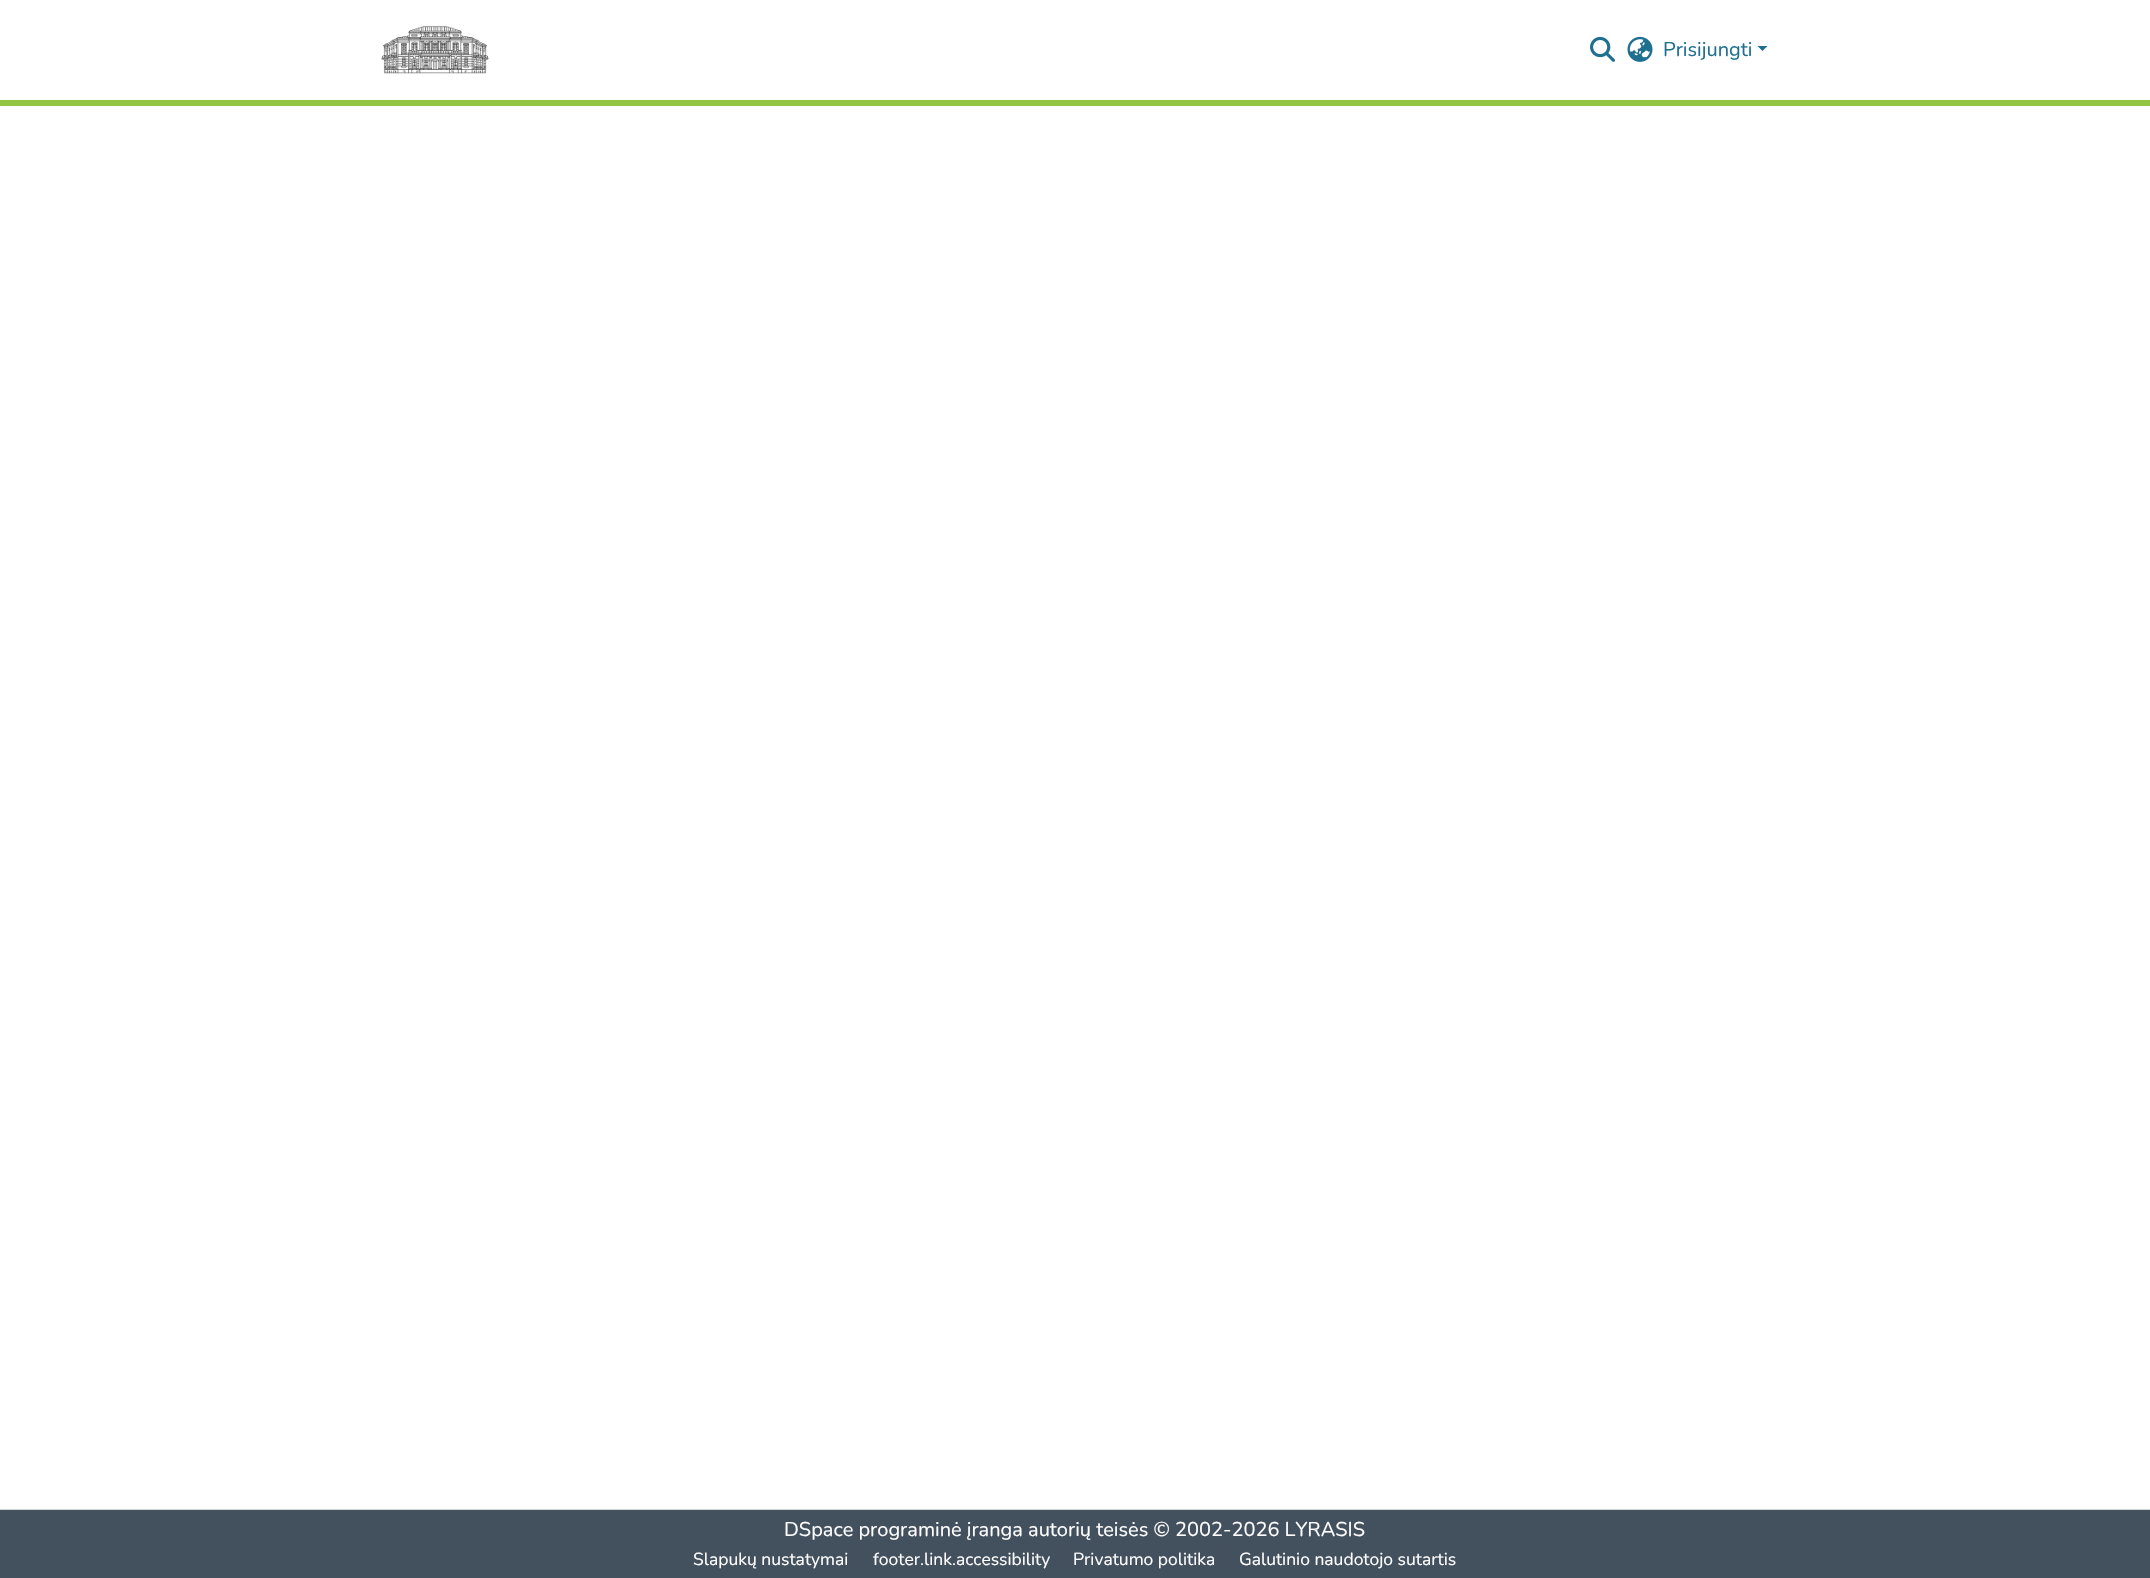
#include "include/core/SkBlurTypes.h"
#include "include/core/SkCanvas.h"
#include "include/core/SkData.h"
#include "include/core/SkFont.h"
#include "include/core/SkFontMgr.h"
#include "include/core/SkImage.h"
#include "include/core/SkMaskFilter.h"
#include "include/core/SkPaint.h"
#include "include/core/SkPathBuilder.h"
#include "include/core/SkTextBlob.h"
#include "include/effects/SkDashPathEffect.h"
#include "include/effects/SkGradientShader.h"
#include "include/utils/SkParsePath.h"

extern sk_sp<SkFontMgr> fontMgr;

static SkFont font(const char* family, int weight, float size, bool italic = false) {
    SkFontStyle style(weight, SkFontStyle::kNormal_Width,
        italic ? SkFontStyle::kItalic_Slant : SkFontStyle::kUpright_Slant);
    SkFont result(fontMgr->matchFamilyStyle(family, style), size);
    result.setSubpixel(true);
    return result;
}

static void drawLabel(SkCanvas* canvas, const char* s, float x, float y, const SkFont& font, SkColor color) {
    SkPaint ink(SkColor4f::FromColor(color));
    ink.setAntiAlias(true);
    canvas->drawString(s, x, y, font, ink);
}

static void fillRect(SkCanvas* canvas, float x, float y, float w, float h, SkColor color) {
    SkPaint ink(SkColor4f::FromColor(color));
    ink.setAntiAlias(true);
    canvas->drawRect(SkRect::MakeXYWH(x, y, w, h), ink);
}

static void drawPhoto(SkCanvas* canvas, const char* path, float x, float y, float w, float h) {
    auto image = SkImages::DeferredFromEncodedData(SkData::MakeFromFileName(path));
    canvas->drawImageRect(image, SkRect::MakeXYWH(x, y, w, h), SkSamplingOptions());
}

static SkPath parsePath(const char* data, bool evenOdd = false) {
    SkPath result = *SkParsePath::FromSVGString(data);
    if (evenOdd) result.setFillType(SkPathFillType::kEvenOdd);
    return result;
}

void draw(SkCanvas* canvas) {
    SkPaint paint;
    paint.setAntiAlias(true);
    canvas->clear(0xFFFFFFFF);
    fillRect(canvas, 0, 100, 2150, 6, 0xFF92C642);
    drawPhoto(canvas, "assets/img1.png", 381, 25, 108, 49);
    drawPhoto(canvas, "assets/img2.png", 1590, 36, 25, 26);
    drawPhoto(canvas, "assets/img3.png", 1627, 36, 26, 26);
    SkFont font1 = font("Nunito", 400, 20);
    drawLabel(canvas, "Prisijungti", 1663, 56, font1, 0xFF1E6F90);
    paint.setColor(0xFF1E6F90);
    canvas->drawPath(parsePath("M1757.5 46H1767.5L1762.5 51Z"), paint);
    fillRect(canvas, 0, 1510, 2150, 68, 0xFF43515F);
    fillRect(canvas, 0, 1509, 2150, 1, 0xFFCED4DA);
    drawLabel(canvas, "DSpace programinė įranga autorių teisės © 2002-2026 LYRASIS", 784, 1536, font1, 0xFFFFFFFF);
    SkFont font2 = font("Nunito", 400, 17.5f);
    drawLabel(canvas, "Slapukų nustatymai", 693, 1565, font2, 0xFFFFFFFF);
    fillRect(canvas, 860, 1545, 1, 29, 0xFF495057);
    drawLabel(canvas, "footer.link.accessibility", 873, 1565, font2, 0xFFFFFFFF);
    fillRect(canvas, 1061, 1545, 1, 29, 0xFF495057);
    drawLabel(canvas, "Privatumo politika", 1073, 1565, font2, 0xFFFFFFFF);
    fillRect(canvas, 1228, 1545, 1, 29, 0xFF495057);
    drawLabel(canvas, "Galutinio naudotojo sutartis", 1239, 1565, font2, 0xFFFFFFFF);
}
